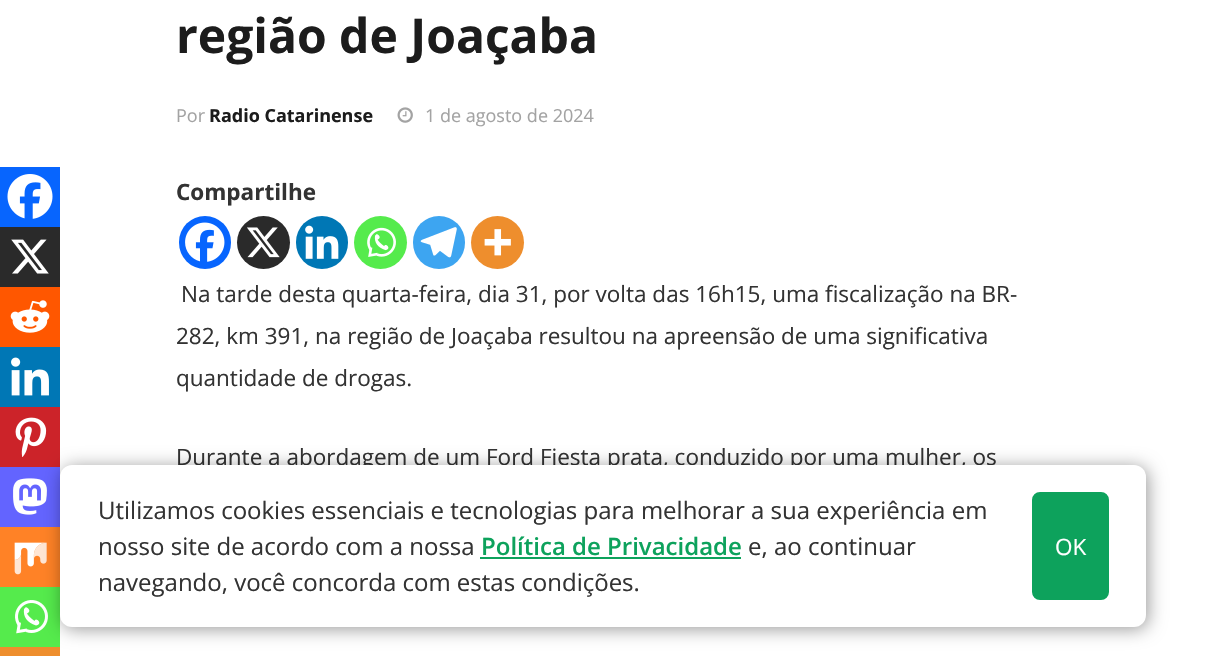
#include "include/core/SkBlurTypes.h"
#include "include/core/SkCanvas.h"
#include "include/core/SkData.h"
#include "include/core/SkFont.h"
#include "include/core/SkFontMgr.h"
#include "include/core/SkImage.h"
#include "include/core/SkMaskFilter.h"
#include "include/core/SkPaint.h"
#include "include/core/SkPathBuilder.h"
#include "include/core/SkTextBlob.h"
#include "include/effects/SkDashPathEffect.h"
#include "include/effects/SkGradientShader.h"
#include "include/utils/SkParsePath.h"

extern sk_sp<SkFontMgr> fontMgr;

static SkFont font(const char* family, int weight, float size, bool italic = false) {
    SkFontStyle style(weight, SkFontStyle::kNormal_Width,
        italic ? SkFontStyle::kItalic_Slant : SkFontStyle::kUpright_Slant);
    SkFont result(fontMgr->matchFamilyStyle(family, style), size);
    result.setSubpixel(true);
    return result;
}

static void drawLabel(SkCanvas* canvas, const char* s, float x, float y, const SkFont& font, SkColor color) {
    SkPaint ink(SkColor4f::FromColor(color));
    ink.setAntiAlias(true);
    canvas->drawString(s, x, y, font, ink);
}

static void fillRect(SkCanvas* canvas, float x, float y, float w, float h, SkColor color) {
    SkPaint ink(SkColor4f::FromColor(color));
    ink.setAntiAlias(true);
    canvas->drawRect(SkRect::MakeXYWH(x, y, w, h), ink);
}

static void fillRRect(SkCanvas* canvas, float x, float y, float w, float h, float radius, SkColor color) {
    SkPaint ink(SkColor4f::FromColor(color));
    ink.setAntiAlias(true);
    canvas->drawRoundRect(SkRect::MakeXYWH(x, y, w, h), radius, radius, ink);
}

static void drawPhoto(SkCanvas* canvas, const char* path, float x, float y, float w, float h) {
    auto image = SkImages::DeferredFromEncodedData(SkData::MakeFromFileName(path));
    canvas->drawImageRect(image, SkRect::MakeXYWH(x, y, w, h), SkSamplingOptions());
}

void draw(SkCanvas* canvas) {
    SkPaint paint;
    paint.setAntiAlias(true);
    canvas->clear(0xFFFFFFFF);
    SkFont font1 = font("Open Sans", 700, 48);
    drawLabel(canvas, "região de Joaçaba", 176, 53, font1, 0xFF1C1C1C);
    SkFont font2 = font("Open Sans", 400, 18);
    drawLabel(canvas, "Por", 176, 122, font2, 0xFFA3A3A3);
    SkFont font3 = font("Open Sans", 700, 18);
    drawLabel(canvas, "Radio Catarinense", 209, 122, font3, 0xFF1C1C1C);
    drawPhoto(canvas, "assets/img1.png", 397, 107, 16, 16);
    drawLabel(canvas, "1 de agosto de 2024", 425, 122, font2, 0xFFA3A3A3);
    fillRect(canvas, 0, 167, 60, 60, 0xFF0765FE);
    drawPhoto(canvas, "assets/img2.png", 7, 174, 46, 45);
    fillRect(canvas, 0, 227, 60, 60, 0xFF2A2A2A);
    drawPhoto(canvas, "assets/img3.png", 11, 239, 38, 35);
    fillRect(canvas, 0, 287, 60, 60, 0xFFFF5700);
    drawPhoto(canvas, "assets/img4.png", 10, 300, 40, 33);
    fillRect(canvas, 0, 347, 60, 60, 0xFF0077B5);
    drawPhoto(canvas, "assets/img5.png", 11, 357, 38, 39);
    fillRect(canvas, 0, 407, 60, 60, 0xFFCC2329);
    drawPhoto(canvas, "assets/img6.png", 15, 417, 32, 40);
    fillRect(canvas, 0, 467, 60, 60, 0xFF6364FF);
    drawPhoto(canvas, "assets/img7.png", 13, 478, 34, 37);
    fillRect(canvas, 0, 527, 60, 60, 0xFFFF8226);
    drawPhoto(canvas, "assets/img8.png", 14, 542, 33, 33);
    fillRect(canvas, 0, 587, 60, 60, 0xFF55EB4C);
    drawPhoto(canvas, "assets/img9.png", 15, 600, 33, 34);
    fillRect(canvas, 0, 647, 60, 9, 0xFFEE8E2D);
    SkFont font4 = font("Open Sans", 700, 22.5f);
    drawLabel(canvas, "Compartilhe", 176, 200, font4, 0xFF333333);
    fillRRect(canvas, 179, 216, 52, 53, 26, 0xFF0765FE);
    drawPhoto(canvas, "assets/img10.png", 185, 222, 40, 40);
    paint.setColor(0xFF2A2A2A);
    canvas->drawCircle(263.5f, 242.5f, 26.5f, paint);
    drawPhoto(canvas, "assets/img11.png", 247, 227, 33, 31);
    fillRRect(canvas, 296, 216, 52, 53, 26, 0xFF0077B5);
    drawPhoto(canvas, "assets/img12.png", 305, 225, 34, 34);
    paint.setColor(0xFF55EB4C);
    canvas->drawCircle(380.5f, 242.5f, 26.5f, paint);
    drawPhoto(canvas, "assets/img13.png", 367, 227, 29, 30);
    fillRRect(canvas, 413, 216, 52, 53, 26, 0xFF3DA5F1);
    drawPhoto(canvas, "assets/img14.png", 420, 227, 37, 31);
    paint.setColor(0xFFEE8E2D);
    canvas->drawCircle(497.5f, 242.5f, 26.5f, paint);
    drawPhoto(canvas, "assets/img15.png", 484, 229, 27, 27);
    SkFont font5 = font("Open Sans", 400, 22.5f);
    drawLabel(canvas, "Na tarde desta quarta-feira, dia 31, por volta das 16h15, uma fiscalização na BR-", 181, 302, font5, 0xFF333333);
    drawLabel(canvas, "282, km 391, na região de Joaçaba resultou na apreensão de uma significativa", 176, 344, font5, 0xFF333333);
    drawLabel(canvas, "quantidade de drogas.", 176, 386, font5, 0xFF333333);
    drawLabel(canvas, "Durante a abordagem de um Ford Fiesta prata, conduzido por uma mulher, os", 176, 465, font5, 0xFF333333);
    paint.setColor(0x66000000);
    paint.setMaskFilter(SkMaskFilter::MakeBlur(kNormal_SkBlurStyle, 9));
    canvas->drawRoundRect(SkRect::MakeXYWH(62, 467, 1086, 162), 12, 12, paint);
    paint.setMaskFilter(nullptr);
    fillRRect(canvas, 60, 465, 1086, 162, 12, 0xFFFFFFFF);
    SkFont font6 = font("Open Sans", 400, 24);
    drawLabel(canvas, "Utilizamos cookies essenciais e tecnologias para melhorar a sua experiência em", 98, 519, font6, 0xFF333333);
    drawLabel(canvas, "nosso site de acordo com a nossa", 98, 555, font6, 0xFF333333);
    SkFont font7 = font("Open Sans", 600, 24);
    drawLabel(canvas, "Política de Privacidade", 481, 555, font7, 0xFF0DA25C);
    fillRect(canvas, 480, 557, 261, 2, 0xFF0DA25C);
    drawLabel(canvas, "e, ao continuar", 748, 555, font6, 0xFF333333);
    drawLabel(canvas, "navegando, você concorda com estas condições.", 98, 591, font6, 0xFF333333);
    paint.setColor(0xFF0DA25C);
    canvas->drawRoundRect(SkRect::MakeXYWH(1033.5f, 493.5f, 74, 105), 6.5f, 6.5f, paint);
    paint.setStroke(true);
    paint.setStrokeWidth(3);
    canvas->drawRoundRect(SkRect::MakeXYWH(1033.5f, 493.5f, 74, 105), 6.5f, 6.5f, paint);
    drawLabel(canvas, "OK", 1055, 555, font5, 0xFFFFFFFF);
}
